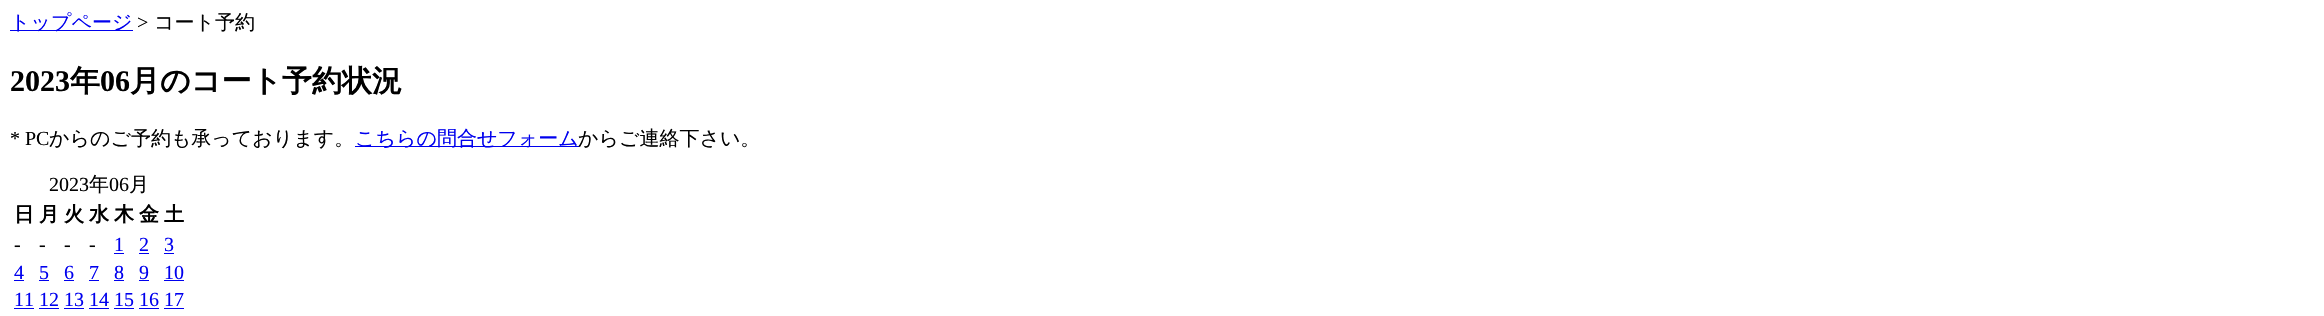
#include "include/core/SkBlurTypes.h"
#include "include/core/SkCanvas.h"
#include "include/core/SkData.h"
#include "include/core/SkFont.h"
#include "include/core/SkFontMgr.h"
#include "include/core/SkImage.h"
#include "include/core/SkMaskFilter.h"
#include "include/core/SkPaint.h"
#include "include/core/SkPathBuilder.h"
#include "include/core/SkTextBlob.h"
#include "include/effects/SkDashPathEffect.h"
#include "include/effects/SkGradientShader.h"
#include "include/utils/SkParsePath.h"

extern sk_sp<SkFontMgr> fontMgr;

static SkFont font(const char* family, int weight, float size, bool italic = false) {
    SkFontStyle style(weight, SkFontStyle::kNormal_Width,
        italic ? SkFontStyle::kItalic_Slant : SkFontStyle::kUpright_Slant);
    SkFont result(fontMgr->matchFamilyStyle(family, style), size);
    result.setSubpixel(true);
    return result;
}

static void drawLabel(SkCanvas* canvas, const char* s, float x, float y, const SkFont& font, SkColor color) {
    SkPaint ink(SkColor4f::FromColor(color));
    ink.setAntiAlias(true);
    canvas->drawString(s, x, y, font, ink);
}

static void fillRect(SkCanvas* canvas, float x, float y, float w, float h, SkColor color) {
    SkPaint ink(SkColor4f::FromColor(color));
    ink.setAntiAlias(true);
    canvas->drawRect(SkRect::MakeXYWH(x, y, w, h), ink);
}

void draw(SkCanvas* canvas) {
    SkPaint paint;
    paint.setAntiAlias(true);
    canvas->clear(0xFFFFFFFF);
    fillRect(canvas, 10, 30, 123, 1, 0xFF0000EE);
    SkFont font1 = font("WenQuanYi Zen Hei", 500, 20);
    drawLabel(canvas, "トップページ", 10, 29, font1, 0xFF0000EE);
    SkFont font2 = font("Liberation Serif", 400, 20);
    drawLabel(canvas, ">", 137, 29, font2, 0xFF000000);
    drawLabel(canvas, "コート予約", 154, 29, font1, 0xFF000000);
    SkFont font3 = font("Liberation Serif", 700, 30);
    drawLabel(canvas, "2023", 10, 91, font3, 0xFF000000);
    SkFont font4 = font("WenQuanYi Zen Hei", 700, 30);
    drawLabel(canvas, "年", 70, 91, font4, 0xFF000000);
    drawLabel(canvas, "06", 100, 91, font3, 0xFF000000);
    drawLabel(canvas, "月のコート予約状況", 130, 91, font4, 0xFF000000);
    drawLabel(canvas, "* PC", 10, 145, font2, 0xFF000000);
    drawLabel(canvas, "からのご予約も承っております。", 49, 145, font1, 0xFF000000);
    fillRect(canvas, 355, 146, 224, 1, 0xFF0000EE);
    drawLabel(canvas, "こちらの問合せフォーム", 355, 145, font1, 0xFF0000EE);
    drawLabel(canvas, "からご連絡下さい。", 578, 145, font1, 0xFF000000);
    drawLabel(canvas, "2023", 49, 191, font2, 0xFF000000);
    drawLabel(canvas, "年", 89, 191, font1, 0xFF000000);
    drawLabel(canvas, "06", 109, 191, font2, 0xFF000000);
    drawLabel(canvas, "月", 129, 191, font1, 0xFF000000);
    SkFont font5 = font("WenQuanYi Zen Hei", 700, 20);
    drawLabel(canvas, "日", 14, 221, font5, 0xFF000000);
    drawLabel(canvas, "月", 39, 221, font5, 0xFF000000);
    drawLabel(canvas, "火", 64, 221, font5, 0xFF000000);
    drawLabel(canvas, "水", 89, 221, font5, 0xFF000000);
    drawLabel(canvas, "木", 114, 221, font5, 0xFF000000);
    drawLabel(canvas, "金", 139, 221, font5, 0xFF000000);
    drawLabel(canvas, "土", 164, 221, font5, 0xFF000000);
    drawLabel(canvas, "-", 14, 251, font2, 0xFF000000);
    drawLabel(canvas, "-", 39, 251, font2, 0xFF000000);
    drawLabel(canvas, "-", 64, 251, font2, 0xFF000000);
    drawLabel(canvas, "-", 89, 251, font2, 0xFF000000);
    drawLabel(canvas, "1", 114, 251, font2, 0xFF0000EE);
    fillRect(canvas, 114, 253, 10, 1, 0xFF0000EE);
    drawLabel(canvas, "2", 139, 251, font2, 0xFF0000EE);
    fillRect(canvas, 139, 253, 10, 1, 0xFF0000EE);
    drawLabel(canvas, "3", 164, 251, font2, 0xFF0000EE);
    fillRect(canvas, 164, 253, 10, 1, 0xFF0000EE);
    drawLabel(canvas, "4", 14, 279, font2, 0xFF0000EE);
    fillRect(canvas, 14, 280, 10, 1, 0xFF0000EE);
    drawLabel(canvas, "5", 39, 279, font2, 0xFF0000EE);
    fillRect(canvas, 39, 280, 10, 1, 0xFF0000EE);
    drawLabel(canvas, "6", 64, 279, font2, 0xFF0000EE);
    fillRect(canvas, 64, 280, 10, 1, 0xFF0000EE);
    drawLabel(canvas, "7", 89, 279, font2, 0xFF0000EE);
    fillRect(canvas, 89, 280, 10, 1, 0xFF0000EE);
    drawLabel(canvas, "8", 114, 279, font2, 0xFF0000EE);
    fillRect(canvas, 114, 280, 10, 1, 0xFF0000EE);
    drawLabel(canvas, "9", 139, 279, font2, 0xFF0000EE);
    fillRect(canvas, 139, 280, 10, 1, 0xFF0000EE);
    drawLabel(canvas, "10", 164, 279, font2, 0xFF0000EE);
    fillRect(canvas, 164, 280, 20, 1, 0xFF0000EE);
    drawLabel(canvas, "11 12 13 14 15 16 17", 14, 306, font2, 0xFF0000EE);
    fillRect(canvas, 14, 308, 20, 1, 0xFF0000EE);
    fillRect(canvas, 39, 308, 20, 1, 0xFF0000EE);
    fillRect(canvas, 64, 308, 20, 1, 0xFF0000EE);
    fillRect(canvas, 89, 308, 20, 1, 0xFF0000EE);
    fillRect(canvas, 114, 308, 20, 1, 0xFF0000EE);
    fillRect(canvas, 139, 308, 20, 1, 0xFF0000EE);
    fillRect(canvas, 164, 308, 20, 1, 0xFF0000EE);
}
